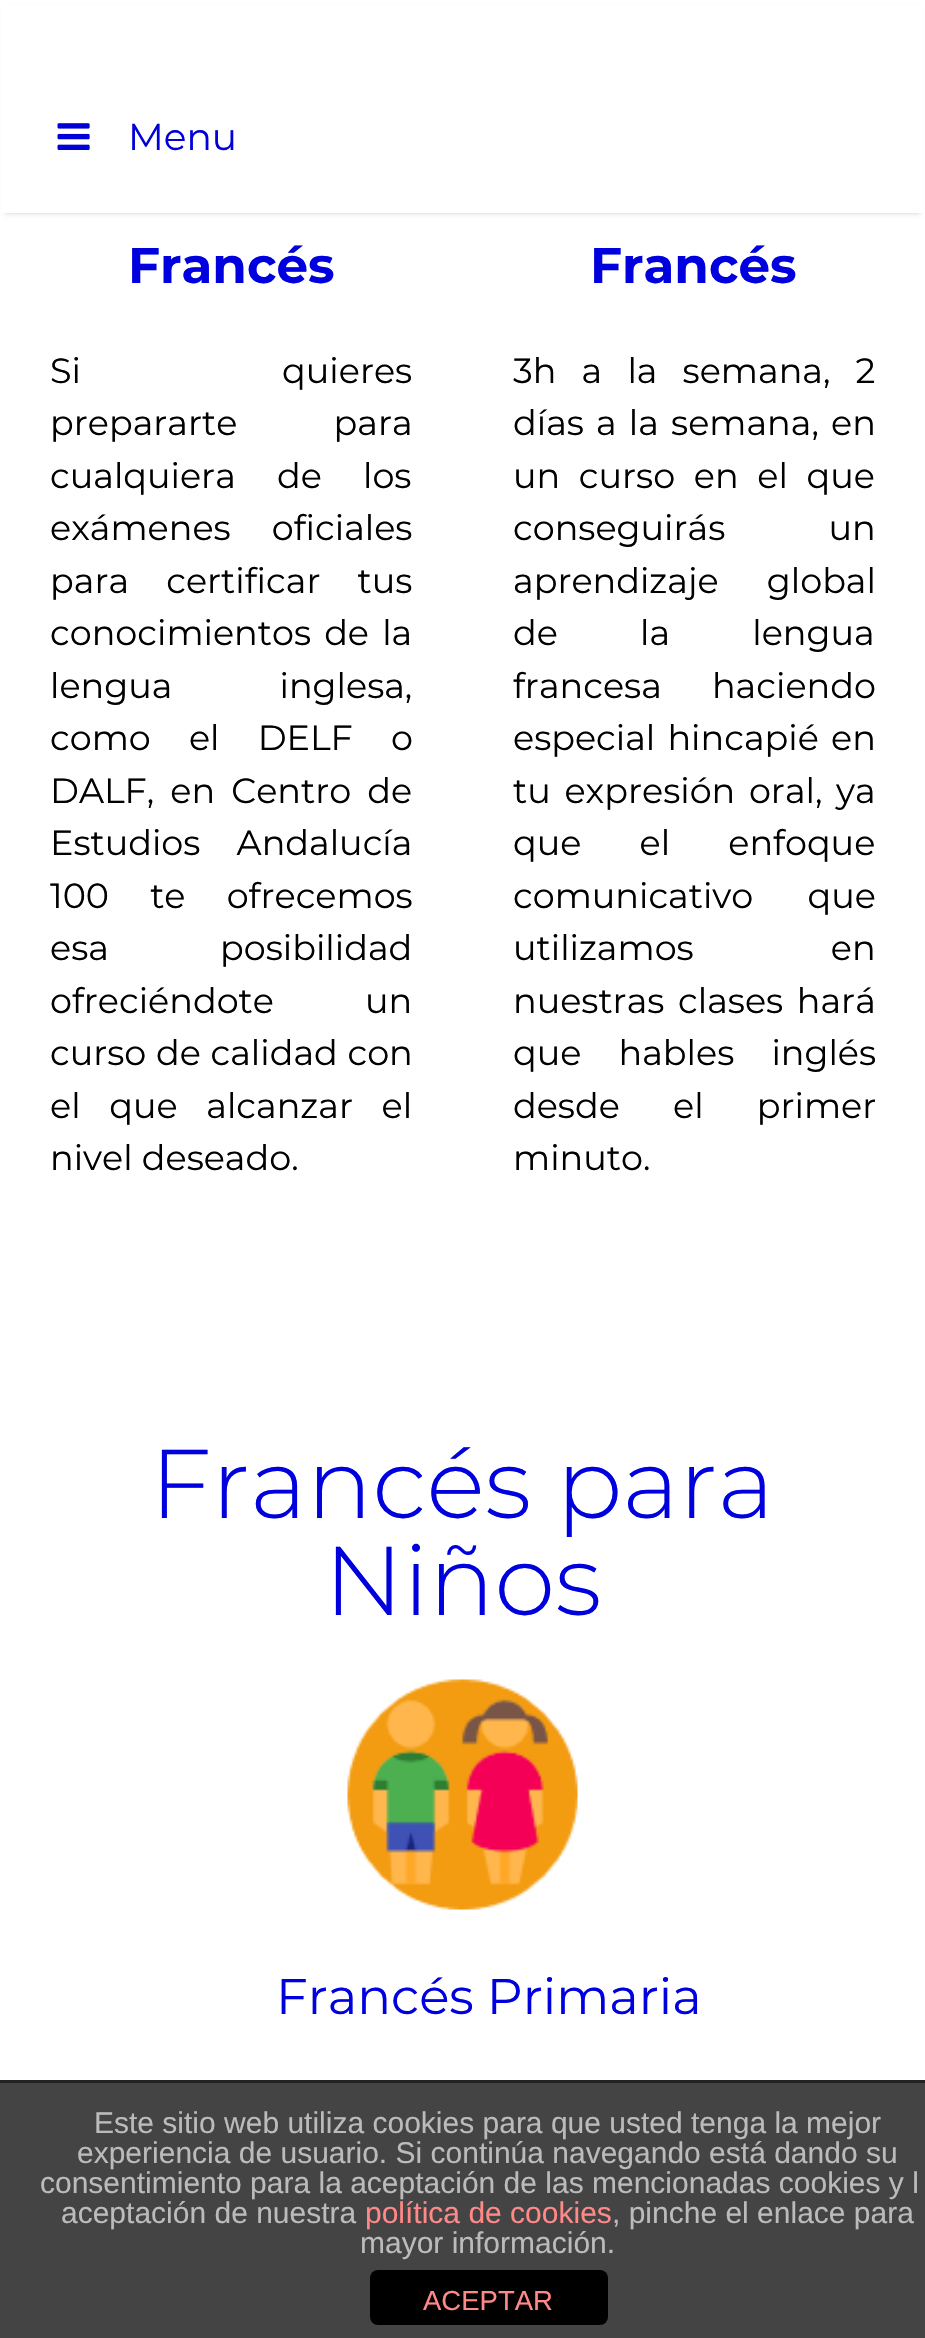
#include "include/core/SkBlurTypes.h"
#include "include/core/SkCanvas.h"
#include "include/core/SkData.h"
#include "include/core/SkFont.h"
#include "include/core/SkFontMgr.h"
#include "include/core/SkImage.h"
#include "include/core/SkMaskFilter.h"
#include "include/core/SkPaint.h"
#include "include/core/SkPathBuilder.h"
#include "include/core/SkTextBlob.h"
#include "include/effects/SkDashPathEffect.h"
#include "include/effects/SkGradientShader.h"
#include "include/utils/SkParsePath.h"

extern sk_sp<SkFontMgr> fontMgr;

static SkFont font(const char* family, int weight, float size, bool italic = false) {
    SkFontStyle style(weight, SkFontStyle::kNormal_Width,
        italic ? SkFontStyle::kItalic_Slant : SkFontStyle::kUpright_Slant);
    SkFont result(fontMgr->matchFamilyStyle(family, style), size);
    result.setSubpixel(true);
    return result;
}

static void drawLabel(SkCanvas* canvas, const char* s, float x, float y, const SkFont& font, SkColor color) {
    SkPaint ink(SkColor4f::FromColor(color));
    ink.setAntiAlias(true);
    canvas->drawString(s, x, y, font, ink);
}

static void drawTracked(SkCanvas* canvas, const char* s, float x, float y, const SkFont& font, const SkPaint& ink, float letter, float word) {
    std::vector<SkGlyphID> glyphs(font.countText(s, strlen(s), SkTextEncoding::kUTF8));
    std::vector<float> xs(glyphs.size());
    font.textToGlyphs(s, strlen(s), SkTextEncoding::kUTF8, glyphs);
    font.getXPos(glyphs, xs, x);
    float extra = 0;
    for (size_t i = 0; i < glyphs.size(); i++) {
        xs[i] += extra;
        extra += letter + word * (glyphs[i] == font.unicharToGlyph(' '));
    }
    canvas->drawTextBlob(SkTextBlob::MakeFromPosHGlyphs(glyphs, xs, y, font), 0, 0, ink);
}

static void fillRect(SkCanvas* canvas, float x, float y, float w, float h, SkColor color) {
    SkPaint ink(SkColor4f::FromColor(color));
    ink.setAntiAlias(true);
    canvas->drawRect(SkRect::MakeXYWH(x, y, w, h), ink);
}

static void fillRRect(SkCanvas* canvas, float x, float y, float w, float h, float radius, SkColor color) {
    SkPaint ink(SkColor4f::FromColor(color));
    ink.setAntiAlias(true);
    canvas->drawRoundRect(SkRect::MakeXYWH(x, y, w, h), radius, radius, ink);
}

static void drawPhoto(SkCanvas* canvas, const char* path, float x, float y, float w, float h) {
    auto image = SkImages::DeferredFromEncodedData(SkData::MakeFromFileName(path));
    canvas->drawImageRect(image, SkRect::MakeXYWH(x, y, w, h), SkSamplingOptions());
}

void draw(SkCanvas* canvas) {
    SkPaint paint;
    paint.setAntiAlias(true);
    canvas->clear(0xFFFFFFFF);
    paint.setColor(0x33000000);
    paint.setMaskFilter(SkMaskFilter::MakeBlur(kNormal_SkBlurStyle, 2.5f));
    canvas->drawRect(SkRect::MakeXYWH(5, 10, 915, 203), paint);
    paint.setMaskFilter(nullptr);
    fillRect(canvas, 1, 6, 923, 207, 0xFFFFFFFF);
    drawPhoto(canvas, "assets/img1.png", 57, 123, 33, 27);
    SkFont font1 = font("Montserrat", 400, 37.5f);
    drawLabel(canvas, "Menu", 128, 150, font1, 0xFF0000D7);
    SkFont font2 = font("Montserrat", 700, 50);
    drawLabel(canvas, "Francés", 128, 283, font2, 0xFF0000DF);
    SkFont font3 = font("Montserrat", 400, 35);
    paint.setColor(0xFF000000);
    drawTracked(canvas, "Si quieres", 50, 383, font3, paint, 0, 192);
    drawTracked(canvas, "prepararte para", 50, 435, font3, paint, 0, 87);
    drawTracked(canvas, "cualquiera de los", 50, 488, font3, paint, 0, 32);
    drawTracked(canvas, "exámenes oficiales", 50, 540, font3, paint, 0, 32);
    drawTracked(canvas, "para certificar tus", 50, 593, font3, paint, 0, 28);
    drawTracked(canvas, "conocimientos de la", 50, 645, font3, paint, 0, 4);
    drawTracked(canvas, "lengua inglesa,", 50, 698, font3, paint, 0, 98);
    drawTracked(canvas, "como el DELF o", 50, 750, font3, paint, 0, 29);
    drawTracked(canvas, "DALF, en Centro de", 50, 803, font3, paint, 0, 7);
    drawTracked(canvas, "Estudios Andalucía", 50, 855, font3, paint, 0, 27);
    drawTracked(canvas, "100 te ofrecemos", 50, 908, font3, paint, 0, 32);
    drawTracked(canvas, "esa posibilidad", 50, 960, font3, paint, 0, 102);
    drawTracked(canvas, "ofreciéndote un", 50, 1013, font3, paint, 0, 82);
    drawTracked(canvas, "curso de calidad con", 50, 1065, font3, paint, 0, 0.5f);
    drawTracked(canvas, "el que alcanzar el", 50, 1118, font3, paint, 0, 19.5f);
    drawLabel(canvas, "nivel deseado.", 50, 1170, font3, 0xFF000000);
    drawLabel(canvas, "Francés", 590, 283, font2, 0xFF0000DF);
    drawTracked(canvas, "3h a la semana, 2", 513, 383, font3, paint, 0, 16);
    drawTracked(canvas, "días a la semana, en", 513, 435, font3, paint, 0, 3);
    drawTracked(canvas, "un curso en el que", 513, 488, font3, paint, 0, 9.5f);
    drawTracked(canvas, "conseguirás un", 513, 540, font3, paint, 0, 94);
    drawTracked(canvas, "aprendizaje global", 513, 593, font3, paint, 0, 39);
    drawTracked(canvas, "de la lengua", 513, 645, font3, paint, 0, 73);
    drawTracked(canvas, "francesa haciendo", 513, 698, font3, paint, 0, 41);
    drawTracked(canvas, "especial hincapié en", 513, 750, font3, paint, 0, 3);
    drawTracked(canvas, "tu expresión oral, ya", 513, 803, font3, paint, 0, 4.5f);
    drawTracked(canvas, "que el enfoque", 513, 855, font3, paint, 0, 49);
    drawTracked(canvas, "comunicativo que", 513, 908, font3, paint, 0, 45);
    drawTracked(canvas, "utilizamos en", 513, 960, font3, paint, 0, 128);
    drawTracked(canvas, "nuestras clases hará", 513, 1013, font3, paint, 0, 4.5f);
    drawTracked(canvas, "que hables inglés", 513, 1065, font3, paint, 0, 28);
    drawTracked(canvas, "desde el primer", 513, 1118, font3, paint, 0, 44);
    drawLabel(canvas, "minuto.", 513, 1170, font3, 0xFF000000);
    SkFont font4 = font("Montserrat", 300, 97.5f);
    drawLabel(canvas, "Francés para", 150, 1518, font4, 0xFF0000DF);
    drawLabel(canvas, "Niños", 324, 1615, font4, 0xFF0000DF);
    drawPhoto(canvas, "assets/img2.png", 347, 1679, 231, 231);
    SkFont font5 = font("Montserrat", 400, 50);
    drawLabel(canvas, "Francés Primaria", 276, 2014, font5, 0xFF0000DF);
    fillRect(canvas, 0, 2083, 925, 255, 0xFF444444);
    fillRect(canvas, 0, 2080, 925, 3, 0xFF222222);
    SkFont font6 = font("Liberation Sans", 400, 30);
    drawLabel(canvas, "Este sitio web utiliza cookies para que usted tenga la mejor", 94, 2133, font6, 0xFFBBBBBB);
    drawLabel(canvas, "experiencia de usuario. Si continúa navegando está dando su", 77, 2163, font6, 0xFFBBBBBB);
    drawLabel(canvas, "consentimiento para la aceptación de las mencionadas cookies y l", 40, 2193, font6, 0xFFBBBBBB);
    drawLabel(canvas, "aceptación de nuestra", 61, 2223, font6, 0xFFBBBBBB);
    drawLabel(canvas, "política de cookies", 365, 2223, font6, 0xFFFF8888);
    drawLabel(canvas, ", pinche el enlace para", 612, 2223, font6, 0xFFBBBBBB);
    drawLabel(canvas, "mayor información.", 360, 2253, font6, 0xFFBBBBBB);
    fillRRect(canvas, 370, 2270, 238, 55, 8, 0xFF000000);
    SkFont font7 = font("Liberation Sans", 400, 27.5f);
    drawLabel(canvas, "ACEPTAR", 423, 2310, font7, 0xFFFF8888);
}
